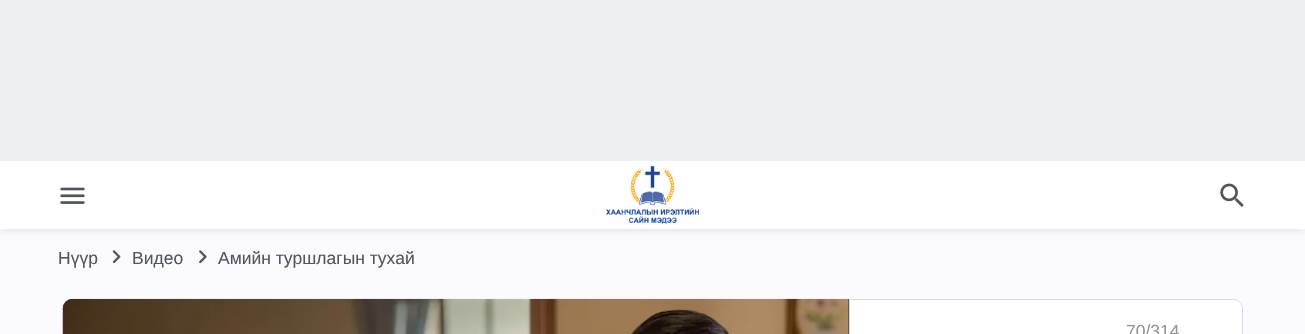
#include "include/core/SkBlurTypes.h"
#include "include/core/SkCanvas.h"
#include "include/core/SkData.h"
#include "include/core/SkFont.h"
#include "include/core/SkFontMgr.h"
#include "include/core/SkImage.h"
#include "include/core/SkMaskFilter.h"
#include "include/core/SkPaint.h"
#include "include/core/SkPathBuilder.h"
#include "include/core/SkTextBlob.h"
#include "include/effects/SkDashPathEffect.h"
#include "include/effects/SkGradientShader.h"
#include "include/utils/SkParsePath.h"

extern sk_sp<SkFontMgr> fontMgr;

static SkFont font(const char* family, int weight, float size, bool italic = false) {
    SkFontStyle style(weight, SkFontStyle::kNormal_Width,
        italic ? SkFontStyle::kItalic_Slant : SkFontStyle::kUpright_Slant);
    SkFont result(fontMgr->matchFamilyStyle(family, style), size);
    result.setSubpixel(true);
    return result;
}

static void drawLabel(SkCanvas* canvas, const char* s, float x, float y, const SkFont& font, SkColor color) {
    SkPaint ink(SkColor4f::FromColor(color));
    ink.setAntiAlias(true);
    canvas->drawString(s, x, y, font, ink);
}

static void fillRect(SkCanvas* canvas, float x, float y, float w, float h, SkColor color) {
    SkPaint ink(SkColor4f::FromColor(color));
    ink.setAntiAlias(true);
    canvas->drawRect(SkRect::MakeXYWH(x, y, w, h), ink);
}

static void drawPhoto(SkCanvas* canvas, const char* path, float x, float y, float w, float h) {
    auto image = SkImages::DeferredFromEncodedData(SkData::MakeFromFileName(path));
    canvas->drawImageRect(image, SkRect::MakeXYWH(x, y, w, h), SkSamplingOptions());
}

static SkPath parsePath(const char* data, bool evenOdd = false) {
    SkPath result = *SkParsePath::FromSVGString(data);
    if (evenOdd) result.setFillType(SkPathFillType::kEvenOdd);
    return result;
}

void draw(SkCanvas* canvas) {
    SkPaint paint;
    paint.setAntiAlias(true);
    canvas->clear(0xFFFAFAFF);
    paint.setColor(0x1C000000);
    paint.setMaskFilter(SkMaskFilter::MakeBlur(kNormal_SkBlurStyle, 4));
    canvas->drawRect(SkRect::MakeXYWH(0, 163, 1305, 67), paint);
    paint.setMaskFilter(nullptr);
    fillRect(canvas, 0, 0, 1305, 161, 0xFFEDEFF2);
    fillRect(canvas, 0, 161, 1305, 68, 0xFFFFFFFF);
    drawPhoto(canvas, "assets/img1.png", 60, 187, 25, 17);
    drawPhoto(canvas, "assets/img2.png", 606, 166, 93, 58);
    drawPhoto(canvas, "assets/img3.png", 1220, 183, 24, 24);
    SkFont font1 = font("Liberation Sans", 400, 17.5f);
    drawLabel(canvas, "Нүүр", 58, 264, font1, 0xFF51555C);
    drawPhoto(canvas, "assets/img4.png", 112, 250, 9, 14);
    drawLabel(canvas, "Видео", 132, 264, font1, 0xFF51555C);
    drawPhoto(canvas, "assets/img5.png", 199, 250, 8, 14);
    drawLabel(canvas, "Амийн туршлагын тухай", 218, 264, font1, 0xFF51555C);
    paint.setColor(0xFF121212);
    canvas->drawPath(parsePath("M73 299H849V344H73C67.5 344 63 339.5 63 334V309C63 303.5 67.5 299 73 299Z"), paint);
    drawPhoto(canvas, "assets/img6.png", 62, 298, 787, 36);
    paint.setColor(0xFFFFFFFF);
    canvas->drawPath(parsePath("M849.5 299.5H1233C1238 299.5 1242.5 304 1242.5 309V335C1242.5 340 1238 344.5 1233 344.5H849.5Z"), paint);
    paint.setStroke(true);
    paint.setStrokeWidth(1);
    paint.setColor(0xFFDADCE0);
    canvas->drawPath(parsePath("M849.5 299.5H1233C1238 299.5 1242.5 304 1242.5 309V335C1242.5 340 1238 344.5 1233 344.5H849.5Z"), paint);
    drawLabel(canvas, "70/314", 1126, 337, font1, 0xFF919499);
}
